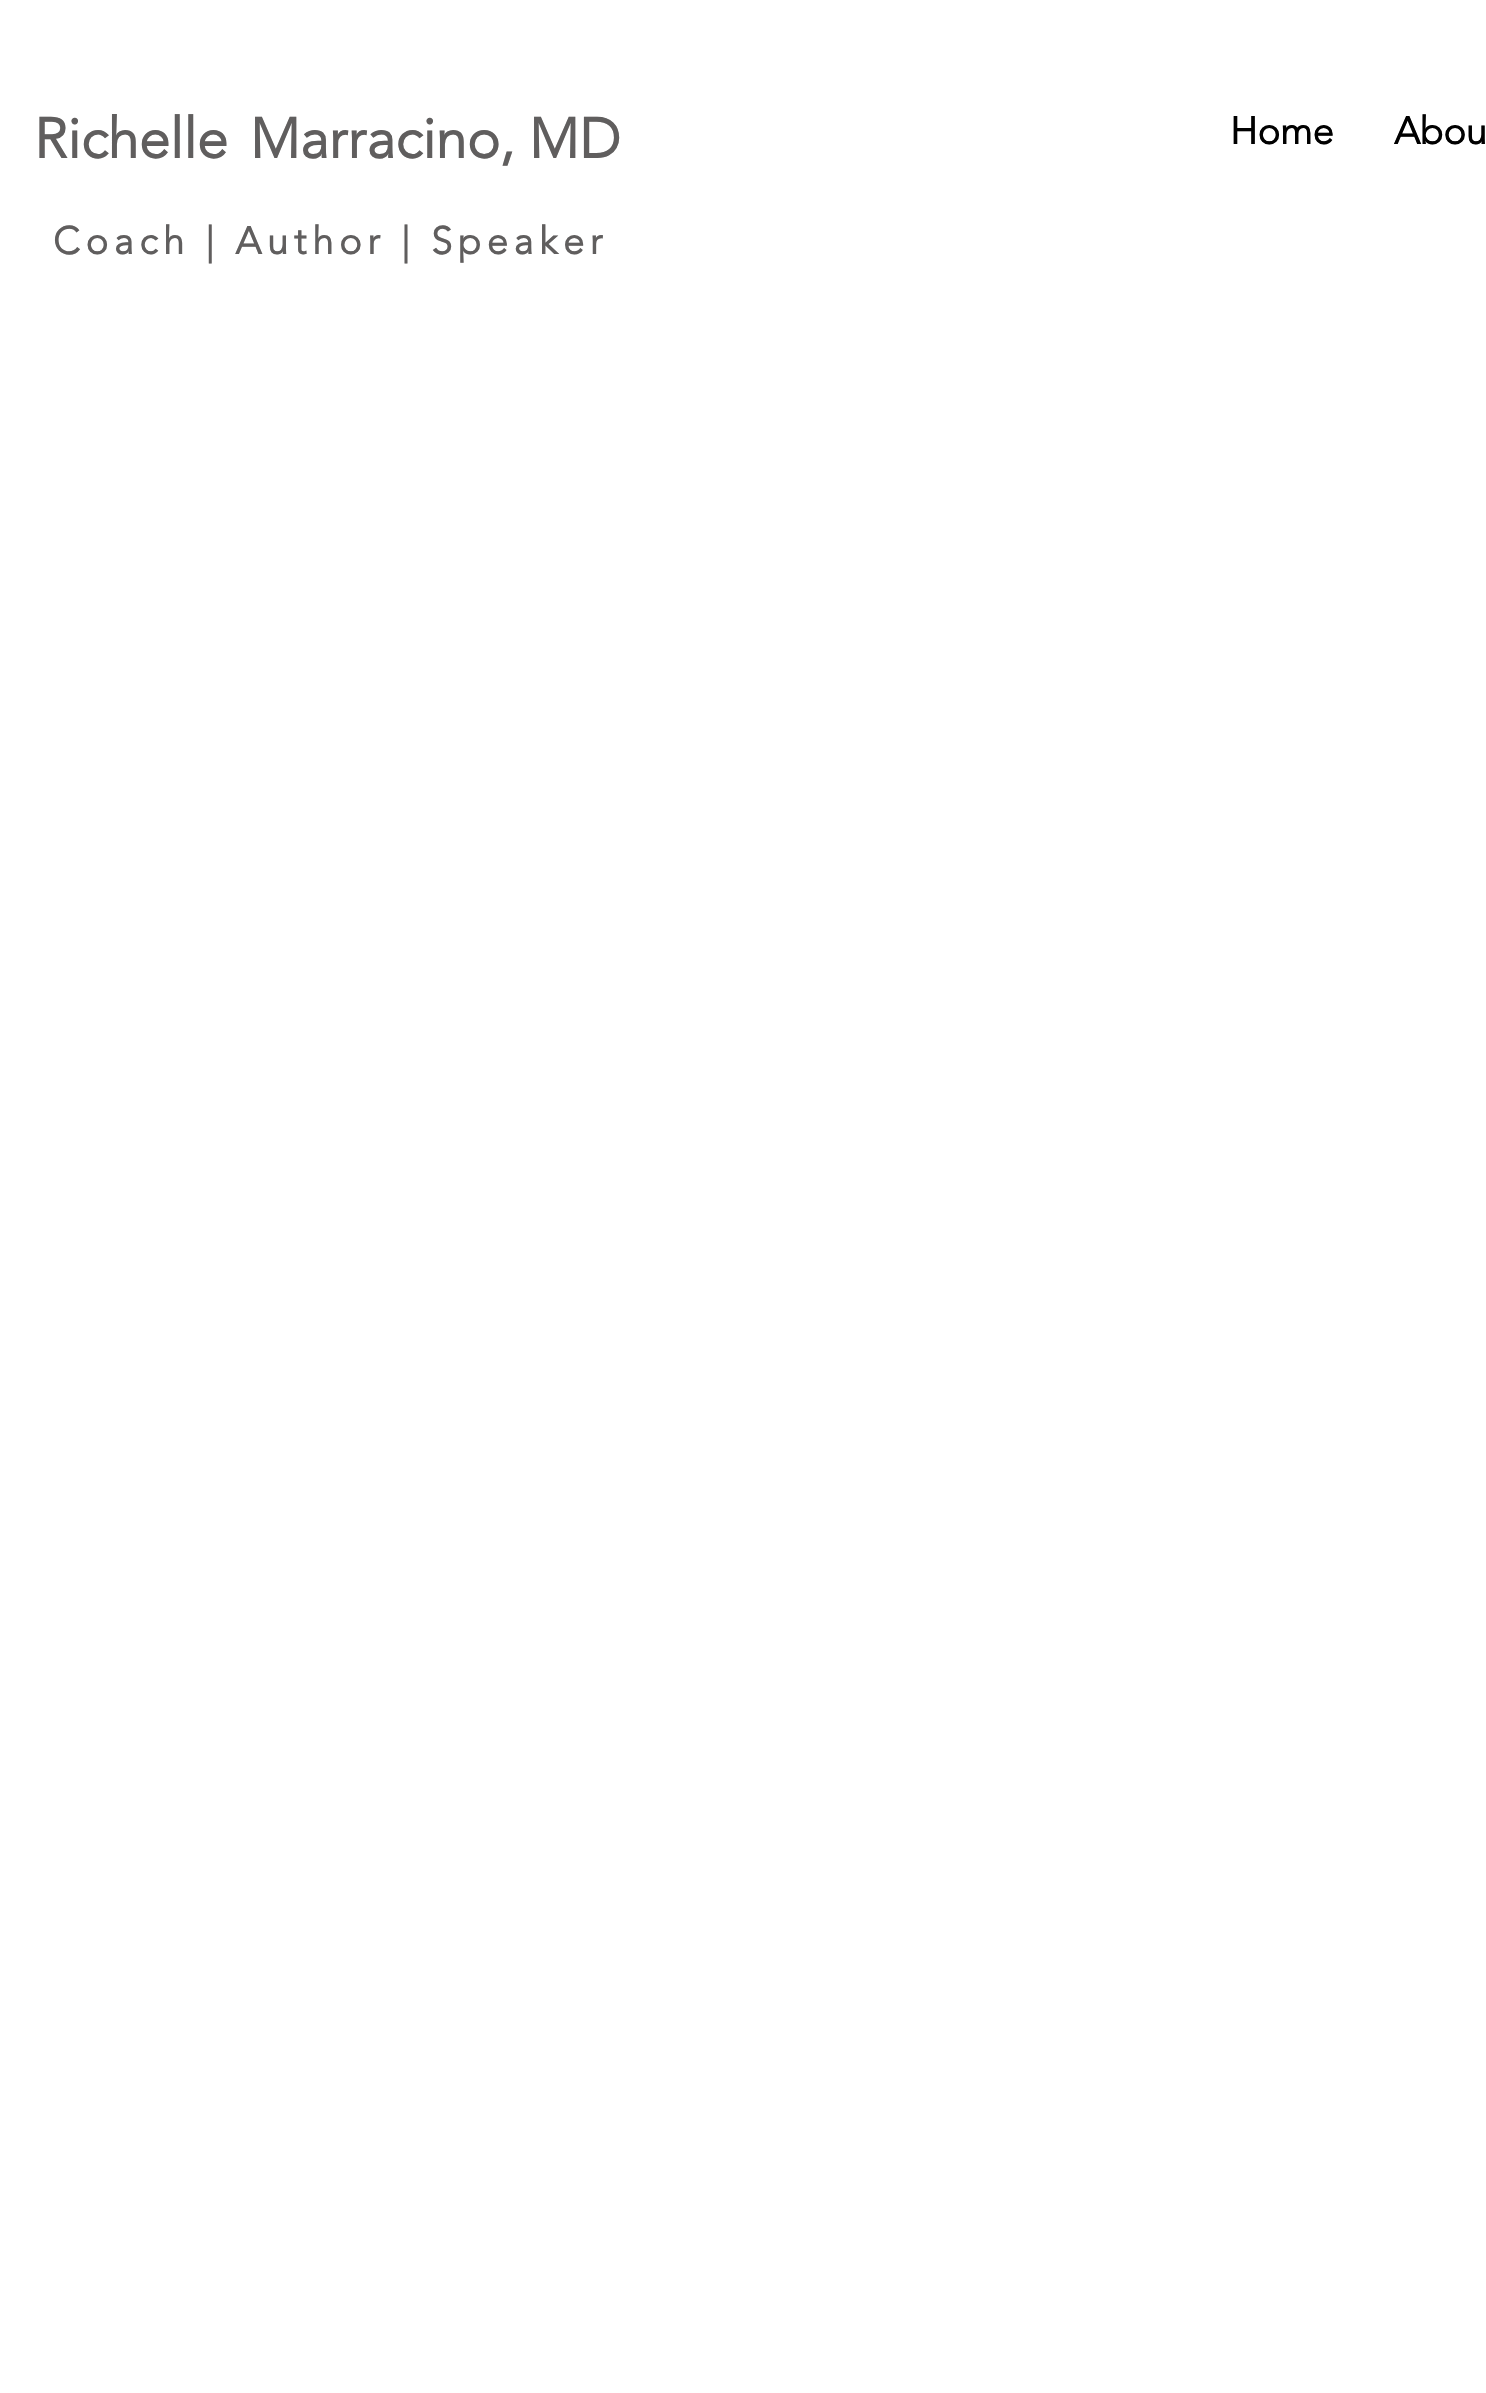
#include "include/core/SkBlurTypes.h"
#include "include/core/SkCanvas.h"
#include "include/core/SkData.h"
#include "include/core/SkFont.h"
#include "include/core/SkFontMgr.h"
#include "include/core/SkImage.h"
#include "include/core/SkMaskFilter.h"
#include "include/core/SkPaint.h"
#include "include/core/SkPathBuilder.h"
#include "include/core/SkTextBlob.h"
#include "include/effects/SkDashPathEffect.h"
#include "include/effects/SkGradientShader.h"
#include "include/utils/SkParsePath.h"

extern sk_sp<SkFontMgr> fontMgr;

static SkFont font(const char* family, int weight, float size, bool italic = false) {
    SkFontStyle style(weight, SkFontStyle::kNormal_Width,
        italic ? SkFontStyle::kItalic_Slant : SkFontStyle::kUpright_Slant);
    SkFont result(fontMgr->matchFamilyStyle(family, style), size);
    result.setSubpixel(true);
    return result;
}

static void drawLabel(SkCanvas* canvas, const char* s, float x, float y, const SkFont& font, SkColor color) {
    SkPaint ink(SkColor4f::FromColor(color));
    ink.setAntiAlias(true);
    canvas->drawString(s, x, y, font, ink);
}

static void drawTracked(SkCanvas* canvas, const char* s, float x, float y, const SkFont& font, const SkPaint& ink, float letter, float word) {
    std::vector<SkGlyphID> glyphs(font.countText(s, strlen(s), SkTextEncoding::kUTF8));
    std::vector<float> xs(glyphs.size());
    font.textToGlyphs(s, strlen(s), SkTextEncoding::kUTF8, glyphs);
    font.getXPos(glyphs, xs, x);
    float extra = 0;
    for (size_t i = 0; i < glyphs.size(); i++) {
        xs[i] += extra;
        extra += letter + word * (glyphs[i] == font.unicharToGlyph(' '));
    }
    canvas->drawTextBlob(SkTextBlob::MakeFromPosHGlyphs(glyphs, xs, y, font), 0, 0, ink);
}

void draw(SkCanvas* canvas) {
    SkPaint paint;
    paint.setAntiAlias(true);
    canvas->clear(0xFFFFFFFF);
    SkFont font1 = font("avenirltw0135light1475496", 700, 56);
    drawLabel(canvas, "Richelle", 34, 158, font1, 0xFF605E5E);
    drawLabel(canvas, "Marracino, MD", 250, 158, font1, 0xFF605E5E);
    SkFont font2 = font("avenirltw0135light1475496", 700, 38);
    drawLabel(canvas, "Home", 1230, 144, font2, 0xFF000000);
    drawLabel(canvas, "Abou", 1394, 144, font2, 0xFF000000);
    paint.setColor(0xFF605E5E);
    drawTracked(canvas, "Coach | Author | Speaker", 53, 254, font2, paint, 5.7f, 0);
}
